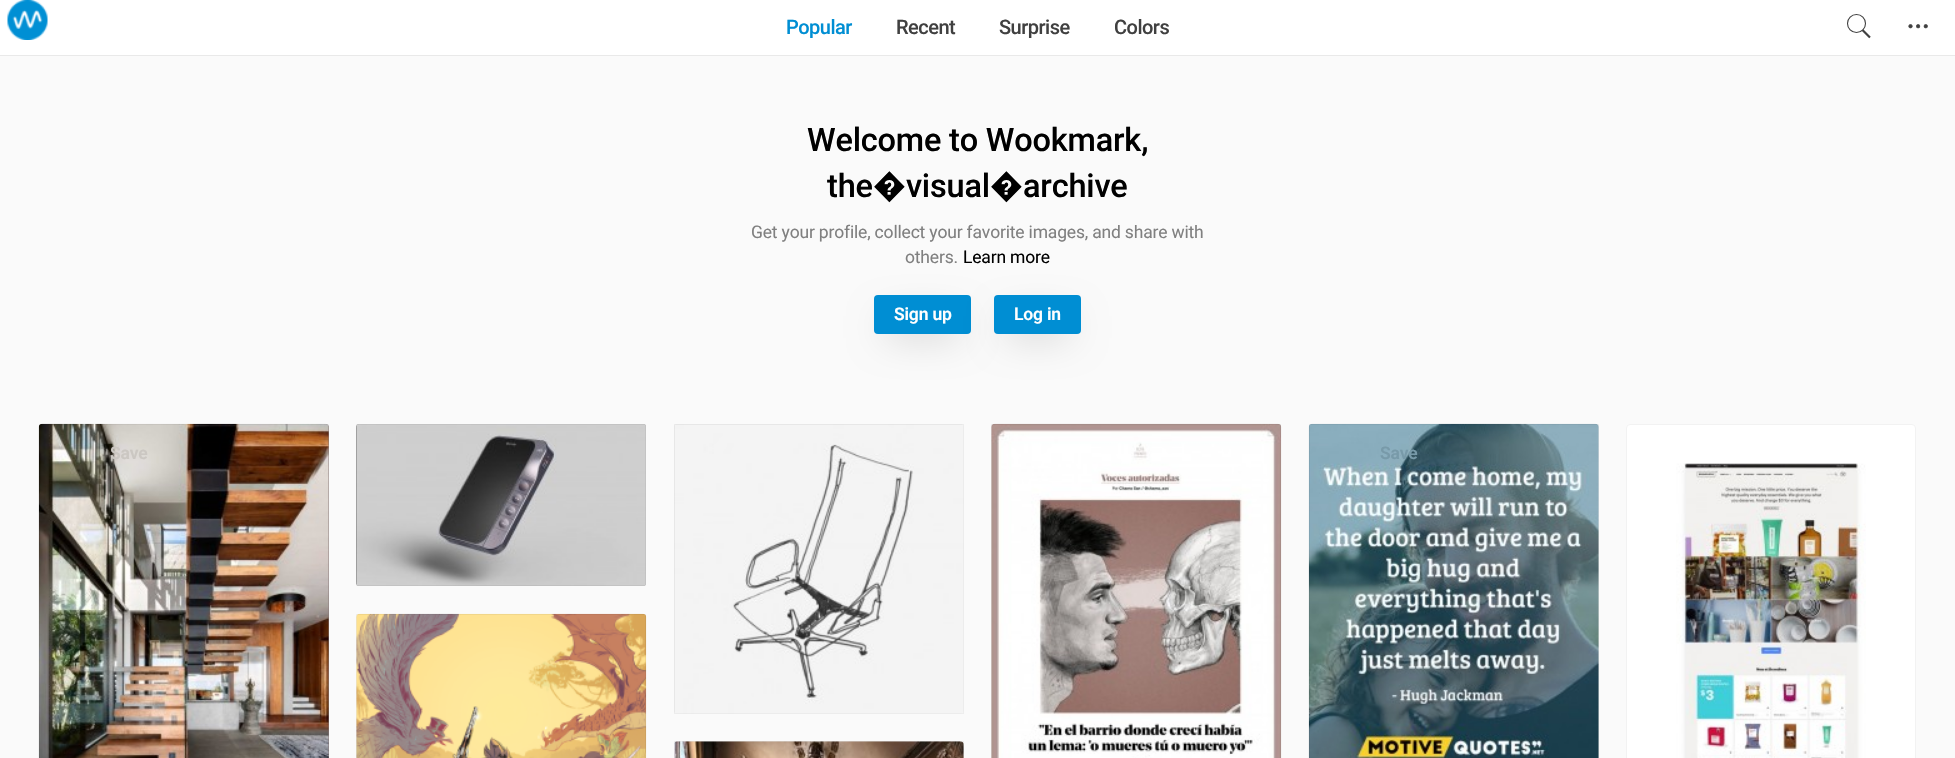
#include "include/core/SkBlurTypes.h"
#include "include/core/SkCanvas.h"
#include "include/core/SkData.h"
#include "include/core/SkFont.h"
#include "include/core/SkFontMgr.h"
#include "include/core/SkImage.h"
#include "include/core/SkMaskFilter.h"
#include "include/core/SkPaint.h"
#include "include/core/SkPathBuilder.h"
#include "include/core/SkTextBlob.h"
#include "include/effects/SkDashPathEffect.h"
#include "include/effects/SkGradientShader.h"
#include "include/utils/SkParsePath.h"

extern sk_sp<SkFontMgr> fontMgr;

static SkFont font(const char* family, int weight, float size, bool italic = false) {
    SkFontStyle style(weight, SkFontStyle::kNormal_Width,
        italic ? SkFontStyle::kItalic_Slant : SkFontStyle::kUpright_Slant);
    SkFont result(fontMgr->matchFamilyStyle(family, style), size);
    result.setSubpixel(true);
    return result;
}

static void drawTracked(SkCanvas* canvas, const char* s, float x, float y, const SkFont& font, const SkPaint& ink, float letter, float word) {
    std::vector<SkGlyphID> glyphs(font.countText(s, strlen(s), SkTextEncoding::kUTF8));
    std::vector<float> xs(glyphs.size());
    font.textToGlyphs(s, strlen(s), SkTextEncoding::kUTF8, glyphs);
    font.getXPos(glyphs, xs, x);
    float extra = 0;
    for (size_t i = 0; i < glyphs.size(); i++) {
        xs[i] += extra;
        extra += letter + word * (glyphs[i] == font.unicharToGlyph(' '));
    }
    canvas->drawTextBlob(SkTextBlob::MakeFromPosHGlyphs(glyphs, xs, y, font), 0, 0, ink);
}

static void fillRect(SkCanvas* canvas, float x, float y, float w, float h, SkColor color) {
    SkPaint ink(SkColor4f::FromColor(color));
    ink.setAntiAlias(true);
    canvas->drawRect(SkRect::MakeXYWH(x, y, w, h), ink);
}

static void fillRRect(SkCanvas* canvas, float x, float y, float w, float h, float radius, SkColor color) {
    SkPaint ink(SkColor4f::FromColor(color));
    ink.setAntiAlias(true);
    canvas->drawRoundRect(SkRect::MakeXYWH(x, y, w, h), radius, radius, ink);
}

static void drawPhoto(SkCanvas* canvas, const char* path, float x, float y, float w, float h) {
    auto image = SkImages::DeferredFromEncodedData(SkData::MakeFromFileName(path));
    canvas->drawImageRect(image, SkRect::MakeXYWH(x, y, w, h), SkSamplingOptions());
}

static SkPath parsePath(const char* data, bool evenOdd = false) {
    SkPath result = *SkParsePath::FromSVGString(data);
    if (evenOdd) result.setFillType(SkPathFillType::kEvenOdd);
    return result;
}

void draw(SkCanvas* canvas) {
    SkPaint paint;
    paint.setAntiAlias(true);
    canvas->clear(0xFFFAFAFA);
    fillRect(canvas, 0, 55, 1955, 1, 0xFFE9E9E9);
    fillRect(canvas, 0, 0, 1955, 55, 0xFFFFFFFF);
    drawPhoto(canvas, "assets/img1.png", 7, 0, 41, 40);
    SkFont font1 = font("Roboto", 500, 20);
    paint.setColor(0xFF008ED3);
    drawTracked(canvas, "Popular", 786, 34, font1, paint, -0.5f, 0);
    paint.setColor(0xFF404040);
    drawTracked(canvas, "Recent", 896, 34, font1, paint, -0.5f, 0);
    drawTracked(canvas, "Surprise", 999, 34, font1, paint, -0.5f, 0);
    drawTracked(canvas, "Colors", 1114, 34, font1, paint, -0.5f, 0);
    paint.setStroke(true);
    paint.setStrokeWidth(1.1f);
    canvas->drawCircle(1856.5f, 23.5f, 9, paint);
    paint.setStrokeWidth(2.2f);
    canvas->drawPath(parsePath("M1862.5 30L1870 37.5"), paint);
    drawPhoto(canvas, "assets/img2.png", 1908, 24, 20, 5);
    SkFont font2 = font("Roboto", 500, 32.5f);
    paint.setStroke(false);
    paint.setColor(0xFF000000);
    drawTracked(canvas, "Welcome to Wookmark,", 807, 151, font2, paint, -0.18f, 0);
    drawTracked(canvas, "the�visual�archive", 827, 197, font2, paint, -0.18f, 0);
    SkFont font3 = font("Roboto", 400, 17.5f);
    paint.setColor(0xFF808080);
    drawTracked(canvas, "Get your profile, collect your favorite images, and share with", 751, 238, font3, paint, -0.18f, 0);
    drawTracked(canvas, "others.", 905, 263, font3, paint, -0.18f, 0);
    paint.setColor(0xFF000000);
    drawTracked(canvas, "Learn more", 963, 263, font3, paint, -0.18f, 0);
    paint.setColor(0x40000000);
    paint.setMaskFilter(SkMaskFilter::MakeBlur(kNormal_SkBlurStyle, 19));
    canvas->drawRect(SkRect::MakeXYWH(886, 320, 73, 14), paint);
    paint.setMaskFilter(nullptr);
    fillRRect(canvas, 874, 295, 97, 39, 4, 0xFF008ED3);
    SkFont font4 = font("Roboto", 600, 17.5f);
    paint.setColor(0xFFFFFFFF);
    drawTracked(canvas, "Sign up", 894, 320, font4, paint, -0.18f, 0);
    paint.setColor(0x40000000);
    paint.setMaskFilter(SkMaskFilter::MakeBlur(kNormal_SkBlurStyle, 19));
    canvas->drawRect(SkRect::MakeXYWH(1006, 320, 63, 14), paint);
    paint.setMaskFilter(nullptr);
    fillRRect(canvas, 994, 295, 87, 39, 4, 0xFF008ED3);
    paint.setColor(0xFFFFFFFF);
    drawTracked(canvas, "Log in", 1014, 320, font4, paint, -0.18f, 0);
    fillRRect(canvas, 39, 424, 290, 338, 4, 0xFF998888);
    drawPhoto(canvas, "assets/img3.png", 38, 423, 291, 335);
    paint.setStroke(true);
    paint.setStrokeWidth(1);
    paint.setColor(0x0D000000);
    canvas->drawRect(SkRect::MakeXYWH(39.5f, 424.5f, 289, 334), paint);
    paint.setStroke(false);
    paint.setColor(0xFFCBC7C2);
    drawTracked(canvas, "Save", 110, 459, font4, paint, -0.18f, 0);
    fillRRect(canvas, 356, 424, 290, 162, 4, 0xFF777777);
    drawPhoto(canvas, "assets/img4.png", 356, 424, 290, 162);
    paint.setStroke(true);
    paint.setColor(0x0D000000);
    canvas->drawRect(SkRect::MakeXYWH(356.5f, 424.5f, 289, 161), paint);
    fillRRect(canvas, 674, 424, 290, 290, 4, 0xFFFFFFFF);
    drawPhoto(canvas, "assets/img5.png", 674, 424, 290, 290);
    canvas->drawRect(SkRect::MakeXYWH(674.5f, 424.5f, 289, 289), paint);
    fillRRect(canvas, 991, 424, 290, 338, 4, 0xFFFFFFFF);
    drawPhoto(canvas, "assets/img6.png", 991, 423, 291, 335);
    canvas->drawRect(SkRect::MakeXYWH(991.5f, 424.5f, 289, 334), paint);
    fillRRect(canvas, 1309, 424, 290, 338, 4, 0xFFFFFFFF);
    drawPhoto(canvas, "assets/img7.png", 1308, 423, 291, 335);
    canvas->drawRect(SkRect::MakeXYWH(1309.5f, 424.5f, 289, 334), paint);
    paint.setStroke(false);
    paint.setColor(0xFF789AA9);
    drawTracked(canvas, "Save", 1380, 459, font4, paint, -0.18f, 0);
    fillRRect(canvas, 1626, 424, 290, 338, 4, 0xFFFFFFFF);
    drawPhoto(canvas, "assets/img8.png", 1676, 463, 190, 295);
    paint.setStroke(true);
    paint.setColor(0xFFF2F2F2);
    canvas->drawRoundRect(SkRect::MakeXYWH(1626.5f, 424.5f, 289, 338), 3.5f, 3.5f, paint);
    fillRRect(canvas, 356, 614, 290, 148, 4, 0xFFFFFFFF);
    drawPhoto(canvas, "assets/img9.png", 356, 613, 291, 145);
    paint.setColor(0x0D000000);
    canvas->drawRect(SkRect::MakeXYWH(356.5f, 614.5f, 289, 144), paint);
    fillRRect(canvas, 674, 741, 290, 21, 4, 0xFFFFFFFF);
    drawPhoto(canvas, "assets/img10.png", 674, 741, 290, 17);
    canvas->drawRect(SkRect::MakeXYWH(674.5f, 741.5f, 289, 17), paint);
}
